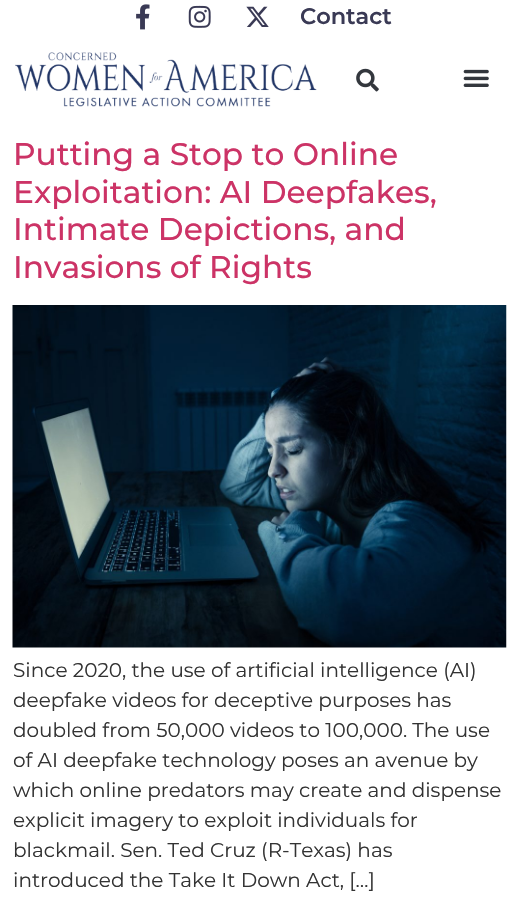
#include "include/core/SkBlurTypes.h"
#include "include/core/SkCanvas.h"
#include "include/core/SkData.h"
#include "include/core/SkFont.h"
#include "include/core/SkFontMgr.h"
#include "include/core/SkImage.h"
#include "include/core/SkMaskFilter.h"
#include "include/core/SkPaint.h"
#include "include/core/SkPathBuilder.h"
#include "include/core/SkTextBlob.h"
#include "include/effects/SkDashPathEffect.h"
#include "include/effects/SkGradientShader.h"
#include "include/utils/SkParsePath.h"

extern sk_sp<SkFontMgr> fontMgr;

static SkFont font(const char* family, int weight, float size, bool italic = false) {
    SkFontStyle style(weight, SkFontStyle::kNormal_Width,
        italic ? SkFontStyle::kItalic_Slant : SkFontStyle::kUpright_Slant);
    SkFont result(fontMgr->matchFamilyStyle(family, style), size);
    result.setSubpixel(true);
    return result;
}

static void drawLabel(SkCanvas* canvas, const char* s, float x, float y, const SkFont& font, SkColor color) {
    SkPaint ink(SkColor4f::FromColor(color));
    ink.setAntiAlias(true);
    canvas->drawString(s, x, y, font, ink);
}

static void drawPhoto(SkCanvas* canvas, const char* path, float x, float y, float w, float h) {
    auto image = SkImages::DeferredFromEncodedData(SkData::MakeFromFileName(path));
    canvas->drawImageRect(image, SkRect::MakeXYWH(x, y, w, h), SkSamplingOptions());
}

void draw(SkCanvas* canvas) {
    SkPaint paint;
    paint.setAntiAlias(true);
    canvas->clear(0xFFFFFFFF);
    drawPhoto(canvas, "assets/img1.png", 136, 4, 14, 26);
    drawPhoto(canvas, "assets/img2.png", 188, 5, 23, 23);
    drawPhoto(canvas, "assets/img3.png", 246, 6, 23, 21);
    SkFont font1 = font("Montserrat", 600, 22.5f);
    drawLabel(canvas, "Contact", 300, 24, font1, 0xFF3A3A55);
    drawPhoto(canvas, "assets/img4.png", 15, 52, 302, 55);
    drawPhoto(canvas, "assets/img5.png", 356, 68, 23, 24);
    drawPhoto(canvas, "assets/img6.png", 463, 69, 26, 18);
    SkFont font2 = font("Montserrat", 500, 31.25f);
    drawLabel(canvas, "Putting a Stop to Online", 13, 165, font2, 0xFFCC3366);
    drawLabel(canvas, "Exploitation: AI Deepfakes,", 13, 203, font2, 0xFFCC3366);
    drawLabel(canvas, "Intimate Depictions, and", 13, 240, font2, 0xFFCC3366);
    drawLabel(canvas, "Invasions of Rights", 13, 278, font2, 0xFFCC3366);
    drawPhoto(canvas, "assets/img7.png", 12, 305, 495, 343);
    SkFont font3 = font("Montserrat", 400, 20);
    drawLabel(canvas, "Since 2020, the use of artificial intelligence (AI)", 13, 677, font3, 0xFF333333);
    drawLabel(canvas, "deepfake videos for deceptive purposes has", 13, 707, font3, 0xFF333333);
    drawLabel(canvas, "doubled from 50,000 videos to 100,000. The use", 13, 737, font3, 0xFF333333);
    drawLabel(canvas, "of AI deepfake technology poses an avenue by", 13, 767, font3, 0xFF333333);
    drawLabel(canvas, "which online predators may create and dispense", 13, 797, font3, 0xFF333333);
    drawLabel(canvas, "explicit imagery to exploit individuals for", 13, 827, font3, 0xFF333333);
    drawLabel(canvas, "blackmail. Sen. Ted Cruz (R-Texas) has", 13, 857, font3, 0xFF333333);
    drawLabel(canvas, "introduced the Take It Down Act, […]", 13, 887, font3, 0xFF333333);
}
